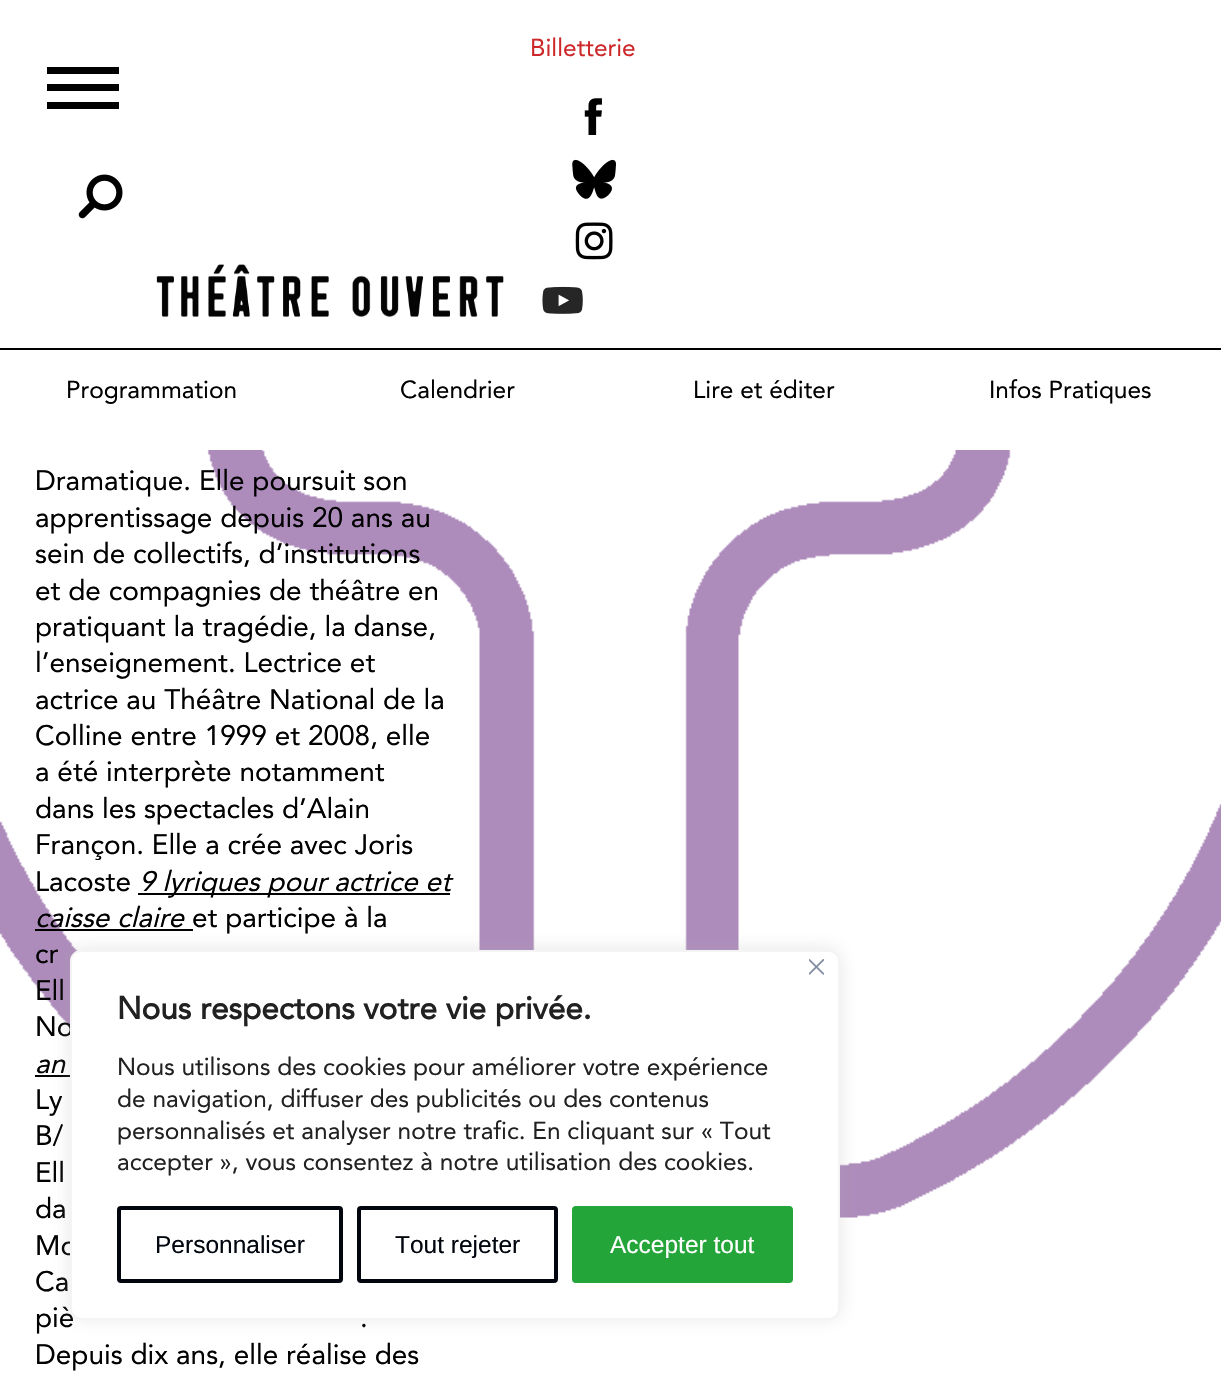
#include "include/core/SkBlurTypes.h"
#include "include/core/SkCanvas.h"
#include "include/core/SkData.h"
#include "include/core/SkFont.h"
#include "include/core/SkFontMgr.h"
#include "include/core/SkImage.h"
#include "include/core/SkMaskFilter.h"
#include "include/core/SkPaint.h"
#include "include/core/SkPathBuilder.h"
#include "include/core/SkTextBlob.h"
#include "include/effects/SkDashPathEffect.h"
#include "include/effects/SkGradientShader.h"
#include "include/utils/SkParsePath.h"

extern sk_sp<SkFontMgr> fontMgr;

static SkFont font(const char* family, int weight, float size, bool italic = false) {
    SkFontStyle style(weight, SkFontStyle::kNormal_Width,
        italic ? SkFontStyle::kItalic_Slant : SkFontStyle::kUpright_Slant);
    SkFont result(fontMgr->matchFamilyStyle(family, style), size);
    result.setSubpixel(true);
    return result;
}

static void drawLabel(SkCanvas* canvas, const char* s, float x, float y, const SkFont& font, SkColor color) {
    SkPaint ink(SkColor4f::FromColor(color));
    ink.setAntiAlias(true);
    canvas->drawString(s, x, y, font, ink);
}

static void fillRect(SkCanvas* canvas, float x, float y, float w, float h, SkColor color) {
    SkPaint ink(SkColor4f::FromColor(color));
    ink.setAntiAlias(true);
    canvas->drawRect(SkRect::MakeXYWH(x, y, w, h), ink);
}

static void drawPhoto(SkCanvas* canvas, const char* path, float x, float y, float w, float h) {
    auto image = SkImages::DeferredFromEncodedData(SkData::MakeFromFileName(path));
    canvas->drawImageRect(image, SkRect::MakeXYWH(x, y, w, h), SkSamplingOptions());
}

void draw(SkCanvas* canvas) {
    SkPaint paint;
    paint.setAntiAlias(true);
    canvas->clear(0xFFFFFFFF);
    drawPhoto(canvas, "assets/img1.png", 0, 450, 1221, 768);
    fillRect(canvas, 0, 348, 1221, 2, 0xFF000000);
    SkFont font1 = font("Avenir", 400, 24.5f);
    drawLabel(canvas, "Billetterie", 530, 56, font1, 0xFFCD2729);
    drawPhoto(canvas, "assets/img2.png", 584, 98, 18, 37);
    drawPhoto(canvas, "assets/img3.png", 572, 159, 44, 40);
    drawPhoto(canvas, "assets/img4.png", 575, 222, 38, 38);
    drawPhoto(canvas, "assets/img5.png", 542, 286, 41, 28);
    fillRect(canvas, 47, 84, 72, 7, 0xFF000000);
    fillRect(canvas, 47, 67, 72, 7, 0xFF000000);
    fillRect(canvas, 47, 102, 72, 7, 0xFF000000);
    drawPhoto(canvas, "assets/img6.png", 78, 174, 45, 45);
    drawPhoto(canvas, "assets/img7.png", 156, 264, 348, 53);
    drawLabel(canvas, "Programmation", 66, 398, font1, 0xFF000000);
    drawLabel(canvas, "Calendrier", 400, 398, font1, 0xFF000000);
    drawLabel(canvas, "Lire et éditer", 693, 398, font1, 0xFF000000);
    drawLabel(canvas, "Infos Pratiques", 989, 398, font1, 0xFF000000);
    SkFont font2 = font("Avenir", 400, 28);
    drawLabel(canvas, "Dramatique. Elle poursuit son", 35, 490, font2, 0xFF000000);
    drawLabel(canvas, "apprentissage depuis 20 ans au", 35, 527, font2, 0xFF000000);
    drawLabel(canvas, "sein de collectifs, d’institutions", 35, 563, font2, 0xFF000000);
    drawLabel(canvas, "et de compagnies de théâtre en", 35, 600, font2, 0xFF000000);
    drawLabel(canvas, "pratiquant la tragédie, la danse,", 35, 636, font2, 0xFF000000);
    drawLabel(canvas, "l’enseignement. Lectrice et", 35, 672, font2, 0xFF000000);
    drawLabel(canvas, "actrice au Théâtre National de la", 35, 709, font2, 0xFF000000);
    drawLabel(canvas, "Colline entre 1999 et 2008, elle", 35, 745, font2, 0xFF000000);
    drawLabel(canvas, "a été interprète notamment", 35, 781, font2, 0xFF000000);
    drawLabel(canvas, "dans les spectacles d’Alain", 35, 818, font2, 0xFF000000);
    drawLabel(canvas, "Françon. Elle a crée avec Joris", 35, 854, font2, 0xFF000000);
    drawLabel(canvas, "Lacoste", 35, 891, font2, 0xFF000000);
    fillRect(canvas, 138, 893, 312, 2, 0xFF000000);
    SkFont font3 = font("Avenir", 400, 28, true);
    drawLabel(canvas, "9 lyriques pour actrice et", 139, 891, font3, 0xFF000000);
    drawLabel(canvas, "caisse claire", 35, 927, font3, 0xFF000000);
    fillRect(canvas, 35, 929, 158, 2, 0xFF000000);
    drawLabel(canvas, "et participe à la", 192, 927, font2, 0xFF000000);
    drawLabel(canvas, "cr", 35, 963, font2, 0xFF000000);
    drawLabel(canvas, "Ell", 35, 1000, font2, 0xFF000000);
    drawLabel(canvas, "No", 35, 1036, font2, 0xFF000000);
    drawLabel(canvas, "an", 35, 1073, font3, 0xFF000000);
    fillRect(canvas, 35, 1075, 35, 2, 0xFF000000);
    drawLabel(canvas, "Ly", 35, 1109, font2, 0xFF000000);
    drawLabel(canvas, "B/", 35, 1145, font2, 0xFF000000);
    drawLabel(canvas, "Ell", 35, 1182, font2, 0xFF000000);
    drawLabel(canvas, "da", 35, 1218, font2, 0xFF000000);
    drawLabel(canvas, "Mo", 35, 1255, font2, 0xFF000000);
    drawLabel(canvas, "Ca", 35, 1291, font2, 0xFF000000);
    drawLabel(canvas, "piè", 35, 1327, font2, 0xFF000000);
    drawLabel(canvas, ".", 360, 1327, font2, 0xFF000000);
    drawLabel(canvas, "Depuis dix ans, elle réalise des", 35, 1364, font2, 0xFF000000);
    paint.setColor(0x4DACABAB);
    paint.setMaskFilter(SkMaskFilter::MakeBlur(kNormal_SkBlurStyle, 9));
    canvas->drawRoundRect(SkRect::MakeXYWH(70, 949, 770, 369), 11, 11, paint);
    paint.setMaskFilter(nullptr);
    paint.setColor(0xFFFFFFFF);
    canvas->drawRoundRect(SkRect::MakeXYWH(71, 951, 768, 368), 10, 10, paint);
    paint.setStroke(true);
    paint.setStrokeWidth(2);
    paint.setColor(0xFFF4F4F4);
    canvas->drawRoundRect(SkRect::MakeXYWH(71, 951, 768, 368), 10, 10, paint);
    drawPhoto(canvas, "assets/img8.png", 809, 959, 15, 16);
    SkFont font4 = font("Avenir", 700, 31.5f);
    drawLabel(canvas, "Nous respectons votre vie privée.", 117, 1019, font4, 0xFF212121);
    drawLabel(canvas, "Nous utilisons des cookies pour améliorer votre expérience", 117, 1075, font1, 0xFF212121);
    drawLabel(canvas, "de navigation, diffuser des publicités ou des contenus", 117, 1107, font1, 0xFF212121);
    drawLabel(canvas, "personnalisés et analyser notre trafic. En cliquant sur « Tout", 117, 1139, font1, 0xFF212121);
    drawLabel(canvas, "accepter », vous consentez à notre utilisation des cookies.", 117, 1170, font1, 0xFF212121);
    paint.setStrokeWidth(4);
    paint.setColor(0xFF01060E);
    canvas->drawRoundRect(SkRect::MakeXYWH(119, 1208, 222, 73), 2, 2, paint);
    SkFont font5 = font("Liberation Sans", 400, 24.5f);
    drawLabel(canvas, "Personnaliser", 155, 1253, font5, 0xFF01060E);
    canvas->drawRoundRect(SkRect::MakeXYWH(359, 1208, 197, 73), 2, 2, paint);
    drawLabel(canvas, "Tout rejeter", 395, 1253, font5, 0xFF01060E);
    paint.setStroke(false);
    paint.setColor(0xFF23A53A);
    canvas->drawRoundRect(SkRect::MakeXYWH(574, 1208, 217, 73), 2, 2, paint);
    paint.setStroke(true);
    canvas->drawRoundRect(SkRect::MakeXYWH(574, 1208, 217, 73), 2, 2, paint);
    drawLabel(canvas, "Accepter tout", 610, 1253, font5, 0xFFFFFFFF);
}
